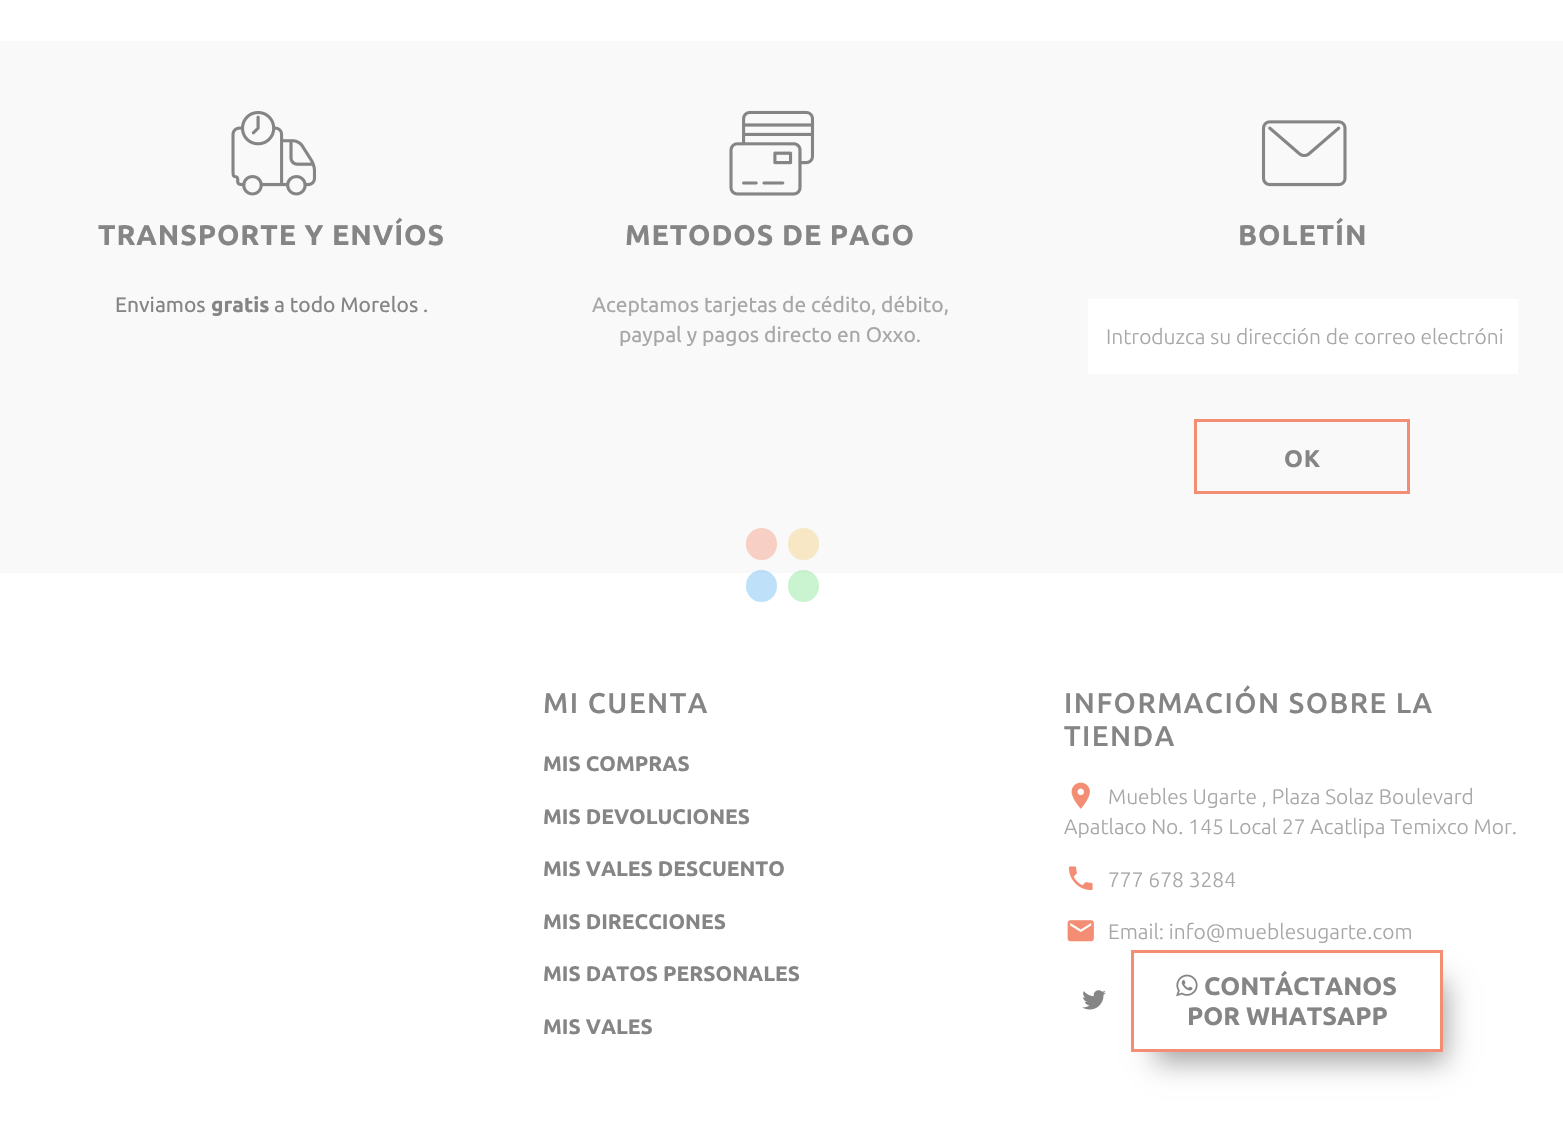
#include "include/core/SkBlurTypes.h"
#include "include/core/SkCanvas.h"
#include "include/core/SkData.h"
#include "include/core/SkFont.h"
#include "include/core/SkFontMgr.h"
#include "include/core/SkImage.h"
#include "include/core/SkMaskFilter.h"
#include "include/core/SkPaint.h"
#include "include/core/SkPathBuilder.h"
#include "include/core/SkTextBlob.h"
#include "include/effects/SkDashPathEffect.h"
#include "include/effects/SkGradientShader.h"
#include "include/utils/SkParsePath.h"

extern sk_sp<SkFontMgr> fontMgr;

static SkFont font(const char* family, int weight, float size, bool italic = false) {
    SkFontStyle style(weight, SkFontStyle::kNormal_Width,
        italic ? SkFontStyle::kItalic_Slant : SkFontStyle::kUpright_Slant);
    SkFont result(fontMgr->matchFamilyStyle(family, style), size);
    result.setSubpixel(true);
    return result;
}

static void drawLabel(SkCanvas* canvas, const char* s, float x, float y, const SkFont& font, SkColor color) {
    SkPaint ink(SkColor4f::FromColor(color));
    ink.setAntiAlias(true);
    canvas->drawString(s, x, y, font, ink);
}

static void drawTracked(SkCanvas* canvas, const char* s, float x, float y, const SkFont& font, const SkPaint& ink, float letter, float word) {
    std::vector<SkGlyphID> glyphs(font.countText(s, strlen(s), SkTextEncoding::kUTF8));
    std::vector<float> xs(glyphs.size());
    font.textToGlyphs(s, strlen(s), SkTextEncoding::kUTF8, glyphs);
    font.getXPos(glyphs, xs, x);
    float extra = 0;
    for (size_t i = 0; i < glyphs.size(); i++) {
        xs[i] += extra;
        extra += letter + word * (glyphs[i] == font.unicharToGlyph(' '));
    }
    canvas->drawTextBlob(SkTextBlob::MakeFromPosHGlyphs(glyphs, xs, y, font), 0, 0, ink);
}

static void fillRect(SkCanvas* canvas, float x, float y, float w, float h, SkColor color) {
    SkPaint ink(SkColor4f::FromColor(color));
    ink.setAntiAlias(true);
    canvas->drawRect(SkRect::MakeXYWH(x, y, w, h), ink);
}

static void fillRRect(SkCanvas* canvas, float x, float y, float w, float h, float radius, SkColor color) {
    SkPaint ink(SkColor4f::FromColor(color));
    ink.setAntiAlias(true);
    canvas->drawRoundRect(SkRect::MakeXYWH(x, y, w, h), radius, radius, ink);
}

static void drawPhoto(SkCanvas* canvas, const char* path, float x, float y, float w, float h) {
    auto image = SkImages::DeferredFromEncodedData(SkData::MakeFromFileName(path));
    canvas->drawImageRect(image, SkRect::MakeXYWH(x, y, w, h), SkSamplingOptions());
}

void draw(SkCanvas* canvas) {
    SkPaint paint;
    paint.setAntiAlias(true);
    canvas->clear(0xFFFFFFFF);
    fillRect(canvas, 0, 41, 1563, 532, 0xFFF9F9F9);
    drawPhoto(canvas, "assets/img1.png", 231, 111, 86, 85);
    SkFont font1 = font("Ubuntu", 700, 28.5f);
    paint.setColor(0xFF858585);
    drawTracked(canvas, "TRANSPORTE Y ENVÍOS", 98, 245, font1, paint, 0.9f, 0);
    SkFont font2 = font("Ubuntu", 400, 21);
    drawLabel(canvas, "Enviamos", 115, 312, font2, 0xFF858585);
    SkFont font3 = font("Ubuntu", 700, 21);
    drawLabel(canvas, "gratis", 211, 312, font3, 0xFF858585);
    drawLabel(canvas, "a todo Morelos .", 274, 312, font2, 0xFF858585);
    drawPhoto(canvas, "assets/img2.png", 729, 110, 86, 86);
    drawTracked(canvas, "METODOS DE PAGO", 625, 245, font1, paint, 0.9f, 0);
    drawLabel(canvas, "Aceptamos tarjetas de cédito, débito,", 592, 312, font2, 0xFFA7A7A7);
    drawLabel(canvas, "paypal y pagos directo en Oxxo.", 619, 342, font2, 0xFFA7A7A7);
    drawPhoto(canvas, "assets/img3.png", 1261, 120, 86, 67);
    drawTracked(canvas, "BOLETÍN", 1238, 245, font1, paint, 0.9f, 0);
    fillRect(canvas, 1088, 299, 430, 75, 0xFFFFFFFF);
    SkFont font4 = font("Ubuntu", 300, 21);
    drawLabel(canvas, "Introduzca su dirección de correo electróni", 1106, 344, font4, 0xFFA7A7A7);
    paint.setStroke(true);
    paint.setStrokeWidth(3);
    paint.setColor(0xFFF38D73);
    canvas->drawRect(SkRect::MakeXYWH(1195.5f, 420.5f, 213, 72), paint);
    SkFont font5 = font("Ubuntu", 700, 24);
    paint.setStroke(false);
    paint.setColor(0xFF858585);
    drawTracked(canvas, "OK", 1284, 467, font5, paint, 0.9f, 0);
    SkFont font6 = font("Ubuntu", 500, 28.5f);
    drawTracked(canvas, "MI CUENTA", 543, 713, font6, paint, 1.5f, 0);
    drawLabel(canvas, "MIS COMPRAS", 543, 771, font3, 0xFF858585);
    drawLabel(canvas, "MIS DEVOLUCIONES", 543, 824, font3, 0xFF858585);
    drawLabel(canvas, "MIS VALES DESCUENTO", 543, 876, font3, 0xFF858585);
    drawLabel(canvas, "MIS DIRECCIONES", 543, 929, font3, 0xFF858585);
    drawLabel(canvas, "MIS DATOS PERSONALES", 543, 981, font3, 0xFF858585);
    drawLabel(canvas, "MIS VALES", 543, 1034, font3, 0xFF858585);
    drawTracked(canvas, "INFORMACIÓN SOBRE LA", 1064, 713, font6, paint, 1.5f, 0);
    drawTracked(canvas, "TIENDA", 1064, 746, font6, paint, 1.5f, 0);
    drawPhoto(canvas, "assets/img4.png", 1071, 782, 19, 27);
    drawLabel(canvas, "Muebles Ugarte , Plaza Solaz Boulevard", 1108, 804, font4, 0xFFA7A7A7);
    drawLabel(canvas, "Apatlaco No. 145 Local 27 Acatlipa Temixco Mor.", 1064, 834, font4, 0xFFA7A7A7);
    drawPhoto(canvas, "assets/img5.png", 1068, 866, 25, 25);
    drawLabel(canvas, "777 678 3284", 1108, 887, font4, 0xFFA7A7A7);
    drawPhoto(canvas, "assets/img6.png", 1067, 920, 27, 22);
    drawLabel(canvas, "Email: info@mueblesugarte.com", 1108, 939, font4, 0xFFA7A7A7);
    drawPhoto(canvas, "assets/img7.png", 1082, 990, 24, 20);
    fillRRect(canvas, 746, 570, 31, 32, 15.5f, 0x5944AAEE);
    fillRRect(canvas, 788, 570, 31, 32, 15.5f, 0x5966DD77);
    fillRRect(canvas, 788, 528, 31, 32, 15.5f, 0xFFF8E7C4);
    fillRRect(canvas, 746, 528, 31, 32, 15.5f, 0xFFF8CFC4);
    paint.setColor(0xFFA5A4A5);
    paint.setMaskFilter(SkMaskFilter::MakeBlur(kNormal_SkBlurStyle, 13));
    canvas->drawRect(SkRect::MakeXYWH(1155, 981, 291, 81), paint);
    paint.setMaskFilter(nullptr);
    fillRect(canvas, 1134, 956, 306, 93, 0xFFFFFFFF);
    paint.setStroke(true);
    paint.setColor(0xFFF38D73);
    canvas->drawRect(SkRect::MakeXYWH(1132.5f, 951.5f, 309, 99), paint);
    drawPhoto(canvas, "assets/img8.png", 1176, 974, 22, 23);
    SkFont font7 = font("Ubuntu", 700, 25.25f);
    drawLabel(canvas, "CONTÁCTANOS", 1204, 995, font7, 0xFF858585);
    drawLabel(canvas, "POR WHATSAPP", 1187, 1025, font7, 0xFF858585);
}
